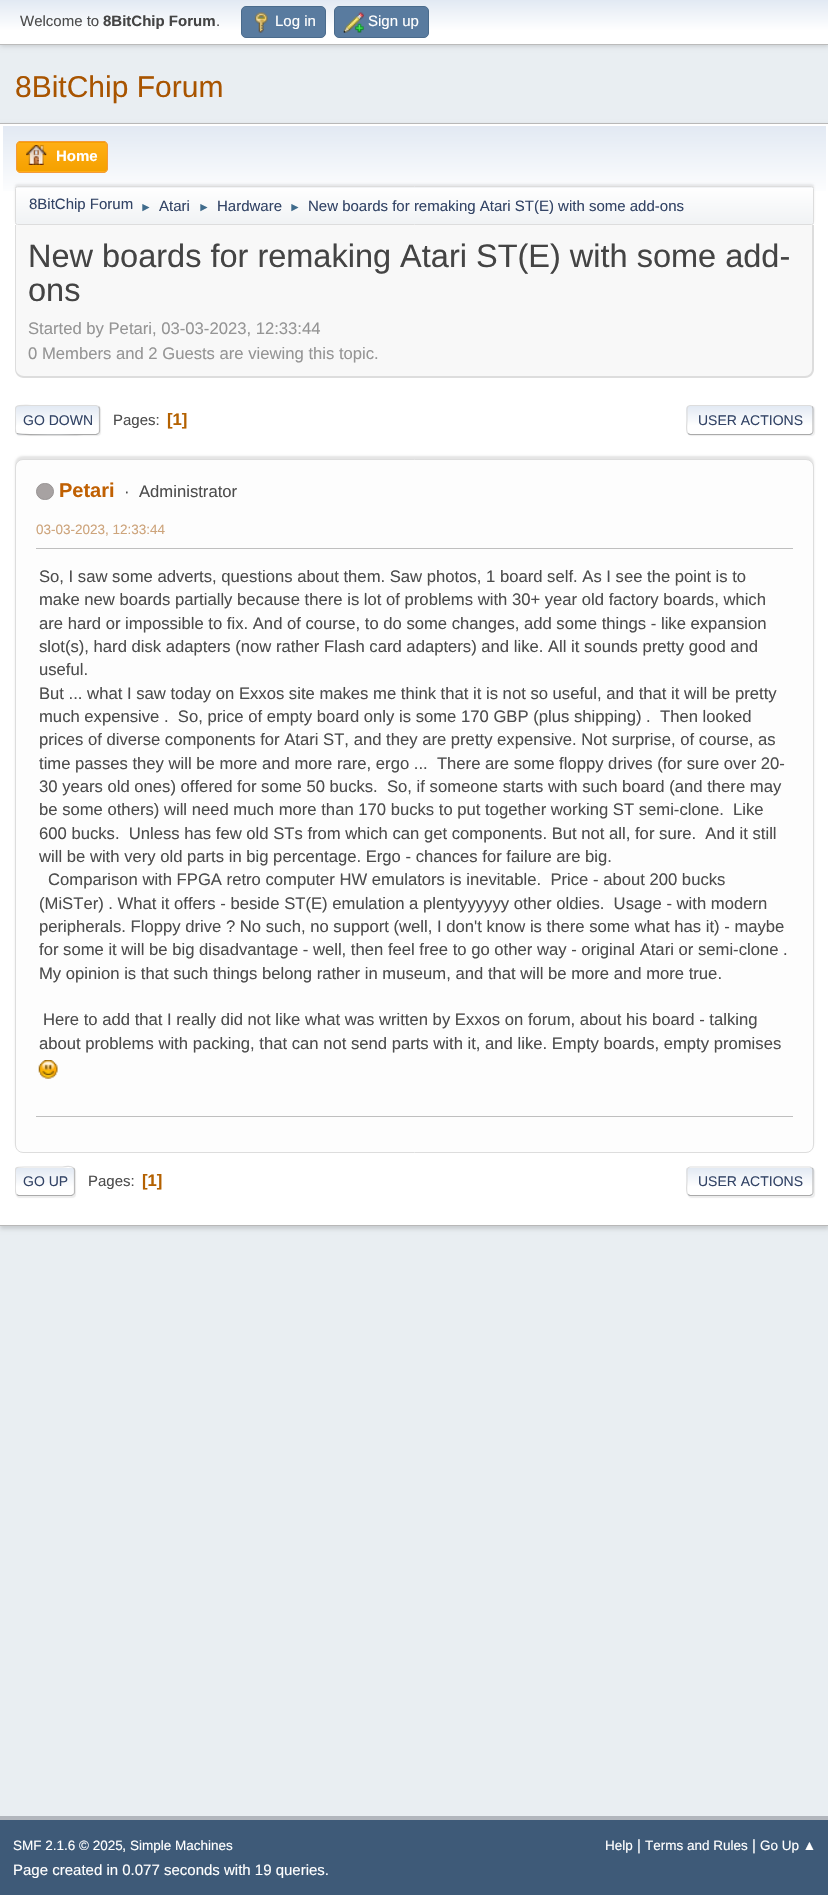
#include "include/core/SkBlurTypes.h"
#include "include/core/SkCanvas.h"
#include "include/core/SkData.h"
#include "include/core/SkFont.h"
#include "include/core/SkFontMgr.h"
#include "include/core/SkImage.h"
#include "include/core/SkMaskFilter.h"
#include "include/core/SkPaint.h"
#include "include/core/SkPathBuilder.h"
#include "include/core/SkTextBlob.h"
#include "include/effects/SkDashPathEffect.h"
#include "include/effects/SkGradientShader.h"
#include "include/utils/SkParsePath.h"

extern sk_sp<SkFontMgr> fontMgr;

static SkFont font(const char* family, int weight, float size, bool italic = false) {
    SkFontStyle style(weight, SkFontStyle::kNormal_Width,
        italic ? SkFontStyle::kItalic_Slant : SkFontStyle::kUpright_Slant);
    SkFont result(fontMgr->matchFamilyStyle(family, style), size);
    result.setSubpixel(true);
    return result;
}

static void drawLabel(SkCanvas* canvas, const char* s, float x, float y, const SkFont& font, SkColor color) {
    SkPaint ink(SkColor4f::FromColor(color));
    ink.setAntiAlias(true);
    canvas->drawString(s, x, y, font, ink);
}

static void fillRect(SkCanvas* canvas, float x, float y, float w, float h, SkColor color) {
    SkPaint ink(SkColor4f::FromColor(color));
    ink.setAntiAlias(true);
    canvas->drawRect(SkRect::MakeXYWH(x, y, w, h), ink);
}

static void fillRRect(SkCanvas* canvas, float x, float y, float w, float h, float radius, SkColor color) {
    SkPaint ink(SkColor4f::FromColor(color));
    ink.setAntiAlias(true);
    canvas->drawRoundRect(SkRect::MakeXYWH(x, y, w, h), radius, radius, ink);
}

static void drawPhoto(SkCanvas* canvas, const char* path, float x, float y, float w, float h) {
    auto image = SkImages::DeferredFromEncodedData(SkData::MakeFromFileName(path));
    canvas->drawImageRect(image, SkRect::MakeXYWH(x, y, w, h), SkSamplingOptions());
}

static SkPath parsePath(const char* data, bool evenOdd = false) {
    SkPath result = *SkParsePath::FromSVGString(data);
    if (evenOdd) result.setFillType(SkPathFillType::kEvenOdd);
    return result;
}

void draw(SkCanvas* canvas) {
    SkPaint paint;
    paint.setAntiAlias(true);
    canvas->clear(0xFFE9EEF2);
    paint.setColor(0x29000000);
    paint.setMaskFilter(SkMaskFilter::MakeBlur(kNormal_SkBlurStyle, 2.5f));
    canvas->drawRect(SkRect::MakeXYWH(0, 1, 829, 45), paint);
    paint.setMaskFilter(nullptr);
    {
        const SkColor colors[] = {0xFFE2E9F3, 0xFFFFFFFF};
        const float stops[] = {0, 0.7f};
        const SkPoint ends[] = {{414, 0}, {414, 44}};
        paint.setShader(SkGradientShader::MakeLinear(ends, colors, stops, 2, SkTileMode::kClamp));
        paint.setAlpha(255);
    }
    canvas->drawRect(SkRect::MakeXYWH(0, 0, 828, 44), paint);
    fillRect(canvas, 0, 44, 828, 1, 0xFFBBBBBB);
    SkFont font1 = font("Liberation Sans", 400, 15);
    drawLabel(canvas, "Welcome to", 20, 26, font1, 0xFF4D4D4D);
    SkFont font2 = font("Liberation Sans", 700, 15);
    drawLabel(canvas, "8BitChip Forum", 103, 26, font2, 0xFF444444);
    drawLabel(canvas, ".", 216, 26, font1, 0xFF4D4D4D);
    paint.setShader(nullptr);
    paint.setColor(0xFF597B9F);
    canvas->drawRoundRect(SkRect::MakeXYWH(241.5f, 6.5f, 84, 31), 4.5f, 4.5f, paint);
    paint.setStroke(true);
    paint.setStrokeWidth(1);
    paint.setColor(0xFF4A6B8C);
    canvas->drawRoundRect(SkRect::MakeXYWH(241.5f, 6.5f, 84, 31), 4.5f, 4.5f, paint);
    drawPhoto(canvas, "assets/img1.png", 254, 12, 14, 21);
    drawLabel(canvas, "Log in", 275, 26, font1, 0xFFFFFFFF);
    paint.setStroke(false);
    paint.setColor(0xFF597B9F);
    canvas->drawRoundRect(SkRect::MakeXYWH(334.5f, 6.5f, 94, 31), 4.5f, 4.5f, paint);
    paint.setStroke(true);
    paint.setColor(0xFF4A6B8C);
    canvas->drawRoundRect(SkRect::MakeXYWH(334.5f, 6.5f, 94, 31), 4.5f, 4.5f, paint);
    drawPhoto(canvas, "assets/img2.png", 343, 12, 21, 21);
    drawLabel(canvas, "Sign up", 368, 26, font1, 0xFFFFFFFF);
    SkFont font3 = font("Liberation Sans", 400, 30);
    drawLabel(canvas, "8BitChip Forum", 15, 97, font3, 0xFFA85400);
    paint.setStroke(false);
    paint.setColor(0x24000000);
    paint.setMaskFilter(SkMaskFilter::MakeBlur(kNormal_SkBlurStyle, 2));
    canvas->drawRect(SkRect::MakeXYWH(0, 125, 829, 1104), paint);
    paint.setMaskFilter(nullptr);
    fillRect(canvas, 0, 124, 828, 1101, 0xFFFFFFFF);
    fillRect(canvas, 0, 123, 828, 1, 0xFFB8B8B8);
    fillRect(canvas, 0, 1225, 828, 1, 0xFFB8B8B8);
    {
        const SkColor colors[] = {0xFFE2E9F3, 0xFFFFFFFF};
        const float stops[] = {0, 0.7f};
        const SkPoint ends[] = {{414, 126}, {414, 228}};
        paint.setShader(SkGradientShader::MakeLinear(ends, colors, stops, 2, SkTileMode::kClamp));
        paint.setAlpha(255);
    }
    canvas->drawRect(SkRect::MakeXYWH(3, 126, 823, 65), paint);
    canvas->save();
    canvas->clipPath(parsePath("M21 141H103C106 141 108 143 108 146V168C108 171 106 173 103 173H21C18 173 16 171 16 168V146C16 143 18 141 21 141Z"), true);
    {
        const SkColor colors[] = {0xFFFFAE14, 0xFFF5A100};
        const float stops[] = {0, 1};
        const SkPoint ends[] = {{62, 114}, {62, 143}};
        paint.setShader(SkGradientShader::MakeLinear(ends, colors, stops, 2, SkTileMode::kClamp));
        paint.setAlpha(255);
    }
    canvas->drawRect(SkRect::MakeXYWH(16, 141, 92, 2), paint);
    {
        const SkColor colors[] = {0xFFFFAE14, 0xFFF5A100};
        const float stops[] = {0, 1};
        const SkPoint ends[] = {{62, 143}, {62, 171}};
        paint.setShader(SkGradientShader::MakeLinear(ends, colors, stops, 2, SkTileMode::kClamp));
        paint.setAlpha(255);
    }
    canvas->drawRect(SkRect::MakeXYWH(16, 143, 92, 28), paint);
    {
        const SkColor colors[] = {0xFFFFAE14, 0xFFF5A100};
        const float stops[] = {0, 1};
        const SkPoint ends[] = {{62, 171}, {62, 200}};
        paint.setShader(SkGradientShader::MakeLinear(ends, colors, stops, 2, SkTileMode::kClamp));
        paint.setAlpha(255);
    }
    canvas->drawRect(SkRect::MakeXYWH(16, 171, 92, 2), paint);
    canvas->restore();
    paint.setStroke(true);
    paint.setShader(nullptr);
    paint.setColor(0xFFF49A3A);
    canvas->drawRoundRect(SkRect::MakeXYWH(16.5f, 141.5f, 91, 31), 4.5f, 4.5f, paint);
    drawPhoto(canvas, "assets/img3.png", 26, 145, 21, 20);
    drawLabel(canvas, "Home", 56, 161, font2, 0xFFFFFFFF);
    paint.setStroke(false);
    paint.setColor(0x14000000);
    paint.setMaskFilter(SkMaskFilter::MakeBlur(kNormal_SkBlurStyle, 1));
    canvas->drawRoundRect(SkRect::MakeXYWH(15, 184, 799, 39), 2.5f, 2.5f, paint);
    paint.setMaskFilter(nullptr);
    canvas->save();
    canvas->clipPath(parsePath("M17.5 186H811.5C813 186 814 187 814 188.5V222.5C814 224 813 225 811.5 225H17.5C16 225 15 224 15 222.5V188.5C15 187 16 186 17.5 186Z"), true);
    {
        const SkColor colors[] = {0xFFFFFFFF, 0xFFF1F3F5};
        const float stops[] = {0, 0.95f};
        const SkPoint ends[] = {{414, 151}, {414, 188}};
        paint.setShader(SkGradientShader::MakeLinear(ends, colors, stops, 2, SkTileMode::kClamp));
        paint.setAlpha(255);
    }
    canvas->drawRect(SkRect::MakeXYWH(15, 186, 799, 2), paint);
    canvas->restore();
    {
        const SkColor colors[] = {0xFFFFFFFF, 0xFFF1F3F5};
        const float stops[] = {0, 0.95f};
        const SkPoint ends[] = {{414, 187}, {414, 224}};
        paint.setShader(SkGradientShader::MakeLinear(ends, colors, stops, 2, SkTileMode::kClamp));
        paint.setAlpha(255);
    }
    canvas->drawRect(SkRect::MakeXYWH(15, 188, 799, 36), paint);
    paint.setStroke(true);
    paint.setShader(nullptr);
    paint.setColor(0xFFDDDDDD);
    canvas->drawRoundRect(SkRect::MakeXYWH(15.5f, 186.5f, 798, 38), 2, 2, paint);
    drawLabel(canvas, "8BitChip Forum", 29, 209, font1, 0xFF334466);
    SkFont font4 = font("Liberation Sans", 400, 12);
    drawLabel(canvas, "►", 140, 211, font4, 0xFF3F6B8C);
    drawLabel(canvas, "Atari", 159, 211, font1, 0xFF334466);
    drawLabel(canvas, "►", 198, 211, font4, 0xFF3F6B8C);
    drawLabel(canvas, "Hardware", 217, 211, font1, 0xFF334466);
    drawLabel(canvas, "►", 289, 211, font4, 0xFF3F6B8C);
    drawLabel(canvas, "New boards for remaking Atari ST(E) with some add-ons", 308, 211, font1, 0xFF334466);
    paint.setStroke(false);
    paint.setColor(0xFFF8F8F8);
    canvas->drawPath(parsePath("M15 225H814V369C814 374 810 378 805 378H24C19 378 15 374 15 369Z"), paint);
    paint.setColor(0xFFDDDDDD);
    canvas->drawPath(parsePath("M15 225H814V369C814 374 810 378 805 378H24C19 378 15 374 15 369ZM16 225H812V369C812 373 809 376 805 376H24C20 376 16 373 16 369Z", true), paint);
    SkFont font5 = font("Liberation Sans", 400, 32.5f);
    drawLabel(canvas, "New boards for remaking Atari ST(E) with some add-", 28, 267, font5, 0xFF444444);
    drawLabel(canvas, "ons", 28, 301, font5, 0xFF444444);
    SkFont font6 = font("Liberation Sans", 400, 16.65f);
    drawLabel(canvas, "Started by Petari, 03-03-2023, 12:33:44", 28, 334, font6, 0xFF959595);
    drawLabel(canvas, "0 Members and 2 Guests are viewing this topic.", 28, 359, font6, 0xFF959595);
    paint.setColor(0x91DDDDDD);
    paint.setMaskFilter(SkMaskFilter::MakeBlur(kNormal_SkBlurStyle, 0.5f));
    canvas->drawRoundRect(SkRect::MakeXYWH(16, 406, 85, 30), 4, 4, paint);
    paint.setMaskFilter(nullptr);
    fillRRect(canvas, 15, 405, 85, 30, 4, 0xFFFFFFFF);
    canvas->save();
    canvas->clipPath(parsePath("M19 405H96C98 405 100 407 100 409V431C100 433 98 435 96 435H19C17 435 15 433 15 431V409C15 407 17 405 19 405Z"), true);
    {
        const SkColor colors[] = {0xFFE2E9F3, 0xFFFFFFFF};
        const float stops[] = {0, 0.7f};
        const SkPoint ends[] = {{58, 406}, {58, 434}};
        paint.setShader(SkGradientShader::MakeLinear(ends, colors, stops, 2, SkTileMode::kClamp));
        paint.setAlpha(255);
    }
    canvas->drawRect(SkRect::MakeXYWH(15, 406, 85, 28), paint);
    {
        const SkColor colors[] = {0xFFE2E9F3, 0xFFFFFFFF};
        const float stops[] = {0, 0.7f};
        const SkPoint ends[] = {{58, 434}, {58, 461}};
        paint.setShader(SkGradientShader::MakeLinear(ends, colors, stops, 2, SkTileMode::kClamp));
        paint.setAlpha(255);
    }
    canvas->drawRect(SkRect::MakeXYWH(15, 434, 85, 1), paint);
    canvas->restore();
    paint.setStroke(true);
    paint.setStrokeWidth(1.2f);
    paint.setShader(nullptr);
    paint.setColor(0xFFBBBBBB);
    canvas->drawPath(parsePath("M98.5 406.5C99 407 99.5 408 99.5 409V431C99.5 432 99 433 98.5 433.5"), paint);
    paint.setColor(0xFFAAAAAA);
    canvas->drawPath(parsePath("M98.5 433.5L96 434.5H83.5C76 434.5 19 435.5 17 433.5H16.5"), paint);
    canvas->save();
    canvas->clipRect(SkRect::MakeXYWH(15, 396, 799, 48));
    paint.setColor(0xFFDDDDDD);
    canvas->drawPath(parsePath("M16.5 433.5C14.5 431 15.5 426.5 15.5 424C15.5 403.5 11.5 405.5 31.5 405.5H96L98.5 406.5"), paint);
    canvas->restore();
    SkFont font7 = font("Liberation Sans", 400, 14);
    drawLabel(canvas, "GO DOWN", 23, 425, font7, 0xFF334466);
    drawLabel(canvas, "Pages:", 113, 425, font1, 0xFF4D4D4D);
    SkFont font8 = font("Liberation Sans", 700, 16.65f);
    drawLabel(canvas, "[1]", 167, 425, font8, 0xFFB46100);
    canvas->save();
    canvas->clipPath(parsePath("M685 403H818V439H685ZM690 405H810C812 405 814 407 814 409V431C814 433 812 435 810 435H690C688 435 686 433 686 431V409C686 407 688 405 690 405Z", true), true);
    paint.setStroke(false);
    paint.setColor(0x91DDDDDD);
    paint.setMaskFilter(SkMaskFilter::MakeBlur(kNormal_SkBlurStyle, 0.5f));
    canvas->drawRoundRect(SkRect::MakeXYWH(688, 406, 127, 30), 4, 4, paint);
    paint.setMaskFilter(nullptr);
    canvas->restore();
    fillRRect(canvas, 686, 405, 128, 30, 4, 0xFFFFFFFF);
    canvas->save();
    canvas->clipPath(parsePath("M690 405H810C812 405 814 407 814 409V431C814 433 812 435 810 435H690C688 435 686 433 686 431V409C686 407 688 405 690 405Z"), true);
    {
        const SkColor colors[] = {0xFFE2E9F3, 0xFFFFFFFF};
        const float stops[] = {0, 0.7f};
        const SkPoint ends[] = {{750, 406}, {750, 434}};
        paint.setShader(SkGradientShader::MakeLinear(ends, colors, stops, 2, SkTileMode::kClamp));
        paint.setAlpha(255);
    }
    canvas->drawRect(SkRect::MakeXYWH(686, 406, 128, 28), paint);
    {
        const SkColor colors[] = {0xFFE2E9F3, 0xFFFFFFFF};
        const float stops[] = {0, 0.7f};
        const SkPoint ends[] = {{750, 434}, {750, 461}};
        paint.setShader(SkGradientShader::MakeLinear(ends, colors, stops, 2, SkTileMode::kClamp));
        paint.setAlpha(255);
    }
    canvas->drawRect(SkRect::MakeXYWH(686, 434, 128, 1), paint);
    canvas->restore();
    paint.setStroke(true);
    paint.setShader(nullptr);
    paint.setColor(0xFFBBBBBB);
    canvas->drawPath(parsePath("M812 406.5C813 407 813 408 813 409V431C813 432 813 433 812 433.5"), paint);
    paint.setColor(0xFFAAAAAA);
    canvas->drawPath(parsePath("M812 433.5L810 434.5H690L688 433.5"), paint);
    paint.setColor(0xFFDDDDDD);
    canvas->drawPath(parsePath("M688 433.5C685.5 431.5 687 422.5 687 420V412.5C687 410 686.5 405.5 690 405.5H810L812 406.5"), paint);
    drawLabel(canvas, "USER ACTIONS", 698, 425, font7, 0xFF334466);
    paint.setStroke(false);
    paint.setColor(0x1A000000);
    paint.setMaskFilter(SkMaskFilter::MakeBlur(kNormal_SkBlurStyle, 1));
    canvas->drawRoundRect(SkRect::MakeXYWH(15, 456, 799, 694), 8, 8, paint);
    paint.setMaskFilter(nullptr);
    paint.setColor(0xFFFDFDFD);
    canvas->drawRoundRect(SkRect::MakeXYWH(15.5f, 459.5f, 798, 693), 7.5f, 7.5f, paint);
    paint.setStroke(true);
    paint.setStrokeWidth(1);
    paint.setColor(0xFFDDDDDD);
    canvas->drawRoundRect(SkRect::MakeXYWH(15.5f, 459.5f, 798, 693), 7.5f, 7.5f, paint);
    paint.setStroke(false);
    paint.setColor(0xFFA7A2A2);
    canvas->drawRoundRect(SkRect::MakeXYWH(36.5f, 483.5f, 17, 16), 8, 8, paint);
    paint.setStroke(true);
    paint.setColor(0xFF969292);
    canvas->drawRoundRect(SkRect::MakeXYWH(36.5f, 483.5f, 17, 16), 8, 8, paint);
    SkFont font9 = font("Liberation Sans", 700, 20);
    drawLabel(canvas, "Petari", 59, 497, font9, 0xFFC06002);
    drawLabel(canvas, "·", 124, 497, font6, 0xFF4D4D4D);
    drawLabel(canvas, "Administrator", 139, 497, font6, 0xFF4D4D4D);
    SkFont font10 = font("Liberation Sans", 400, 13.5f);
    drawLabel(canvas, "03-03-2023, 12:33:44", 36, 534, font10, 0xFFCDA47B);
    fillRect(canvas, 36, 548, 757, 1, 0xFFBFBFBF);
    drawLabel(canvas, "So, I saw some adverts, questions about them. Saw photos, 1 board self. As I see the point is to", 39, 582, font6, 0xFF4D4D4D);
    drawLabel(canvas, "make new boards partially because there is lot of problems with 30+ year old factory boards, which", 39, 605, font6, 0xFF4D4D4D);
    drawLabel(canvas, "are hard or impossible to fix. And of course, to do some changes, add some things - like expansion", 39, 629, font6, 0xFF4D4D4D);
    drawLabel(canvas, "slot(s), hard disk adapters (now rather Flash card adapters) and like. All it sounds pretty good and", 39, 652, font6, 0xFF4D4D4D);
    drawLabel(canvas, "useful.", 39, 675, font6, 0xFF4D4D4D);
    drawLabel(canvas, "But ... what I saw today on Exxos site makes me think that it is not so useful, and that it will be pretty", 39, 699, font6, 0xFF4D4D4D);
    drawLabel(canvas, "much expensive .  So, price of empty board only is some 170 GBP (plus shipping) .  Then looked", 39, 722, font6, 0xFF4D4D4D);
    drawLabel(canvas, "prices of diverse components for Atari ST, and they are pretty expensive. Not surprise, of course, as", 39, 745, font6, 0xFF4D4D4D);
    drawLabel(canvas, "time passes they will be more and more rare, ergo ...  There are some floppy drives (for sure over 20-", 39, 769, font6, 0xFF4D4D4D);
    drawLabel(canvas, "30 years old ones) offered for some 50 bucks.  So, if someone starts with such board (and there may", 39, 792, font6, 0xFF4D4D4D);
    drawLabel(canvas, "be some others) will need much more than 170 bucks to put together working ST semi-clone.  Like", 39, 815, font6, 0xFF4D4D4D);
    drawLabel(canvas, "600 bucks.  Unless has few old STs from which can get components. But not all, for sure.  And it still", 39, 839, font6, 0xFF4D4D4D);
    drawLabel(canvas, "will be with very old parts in big percentage. Ergo - chances for failure are big.", 39, 862, font6, 0xFF4D4D4D);
    drawLabel(canvas, "Comparison with FPGA retro computer HW emulators is inevitable.  Price - about 200 bucks", 48, 885, font6, 0xFF4D4D4D);
    drawLabel(canvas, "(MiSTer) . What it offers - beside ST(E) emulation a plentyyyyyy other oldies.  Usage - with modern", 39, 909, font6, 0xFF4D4D4D);
    drawLabel(canvas, "peripherals. Floppy drive ? No such, no support (well, I don't know is there some what has it) - maybe", 39, 932, font6, 0xFF4D4D4D);
    drawLabel(canvas, "for some it will be big disadvantage - well, then feel free to go other way - original Atari or semi-clone .", 39, 955, font6, 0xFF4D4D4D);
    drawLabel(canvas, "My opinion is that such things belong rather in museum, and that will be more and more true.", 39, 979, font6, 0xFF4D4D4D);
    drawLabel(canvas, "Here to add that I really did not like what was written by Exxos on forum, about his board - talking", 43, 1025, font6, 0xFF4D4D4D);
    drawLabel(canvas, "about problems with packing, that can not send parts with it, and like. Empty boards, empty promises", 39, 1049, font6, 0xFF4D4D4D);
    drawPhoto(canvas, "assets/img4.png", 38, 1060, 20, 19);
    fillRect(canvas, 36, 1116, 757, 1, 0xFFBFBFBF);
    paint.setStroke(false);
    paint.setColor(0x91DDDDDD);
    paint.setMaskFilter(SkMaskFilter::MakeBlur(kNormal_SkBlurStyle, 0.5f));
    canvas->drawRoundRect(SkRect::MakeXYWH(16, 1168, 60, 30), 4, 4, paint);
    paint.setMaskFilter(nullptr);
    fillRRect(canvas, 15, 1166, 60, 30, 4, 0xFFFFFFFF);
    canvas->save();
    canvas->clipPath(parsePath("M19 1166H71C73 1166 75 1168 75 1170V1192C75 1194 73 1196 71 1196H19C17 1196 15 1194 15 1192V1170C15 1168 17 1166 19 1166Z"), true);
    {
        const SkColor colors[] = {0xFFE2E9F3, 0xFFFFFFFF};
        const float stops[] = {0, 0.7f};
        const SkPoint ends[] = {{45, 1168}, {45, 1195}};
        paint.setShader(SkGradientShader::MakeLinear(ends, colors, stops, 2, SkTileMode::kClamp));
        paint.setAlpha(255);
    }
    canvas->drawRect(SkRect::MakeXYWH(15, 1168, 60, 27), paint);
    canvas->restore();
    paint.setStroke(true);
    paint.setStrokeWidth(1.2f);
    paint.setShader(nullptr);
    paint.setColor(0xFFBBBBBB);
    canvas->drawPath(parsePath("M73.5 1168C74 1168.5 74.5 1169 74.5 1170V1192.5C74.5 1193.5 74 1194 73.5 1194.5"), paint);
    paint.setColor(0xFFAAAAAA);
    canvas->drawPath(parsePath("M73.5 1194.5L71.5 1195.5H18.5L16.5 1194.5"), paint);
    canvas->save();
    canvas->clipRect(SkRect::MakeXYWH(15, 1158, 799, 47));
    paint.setColor(0xFFDDDDDD);
    canvas->drawPath(parsePath("M16.5 1194.5C14.5 1192.5 15.5 1184 15.5 1181C15.5 1166 12.5 1167 27.5 1167H62.5C62.5 1167 71 1165.5 73.5 1168"), paint);
    canvas->restore();
    drawLabel(canvas, "GO UP", 23, 1186, font7, 0xFF334466);
    drawLabel(canvas, "Pages:", 88, 1186, font1, 0xFF4D4D4D);
    drawLabel(canvas, "[1]", 142, 1186, font8, 0xFFB46100);
    canvas->save();
    canvas->clipPath(parsePath("M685 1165H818V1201H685ZM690 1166H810C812 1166 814 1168 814 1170V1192C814 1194 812 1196 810 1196H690C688 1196 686 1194 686 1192V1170C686 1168 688 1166 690 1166Z", true), true);
    paint.setStroke(false);
    paint.setColor(0x91DDDDDD);
    paint.setMaskFilter(SkMaskFilter::MakeBlur(kNormal_SkBlurStyle, 0.5f));
    canvas->drawRoundRect(SkRect::MakeXYWH(688, 1168, 127, 30), 4, 4, paint);
    paint.setMaskFilter(nullptr);
    canvas->restore();
    fillRRect(canvas, 686, 1166, 128, 30, 4, 0xFFFFFFFF);
    canvas->save();
    canvas->clipPath(parsePath("M690 1166H810C812 1166 814 1168 814 1170V1192C814 1194 812 1196 810 1196H690C688 1196 686 1194 686 1192V1170C686 1168 688 1166 690 1166Z"), true);
    {
        const SkColor colors[] = {0xFFE2E9F3, 0xFFFFFFFF};
        const float stops[] = {0, 0.7f};
        const SkPoint ends[] = {{750, 1168}, {750, 1195}};
        paint.setShader(SkGradientShader::MakeLinear(ends, colors, stops, 2, SkTileMode::kClamp));
        paint.setAlpha(255);
    }
    canvas->drawRect(SkRect::MakeXYWH(686, 1168, 128, 27), paint);
    {
        const SkColor colors[] = {0xFFE2E9F3, 0xFFFFFFFF};
        const float stops[] = {0, 0.7f};
        const SkPoint ends[] = {{750, 1195}, {750, 1223}};
        paint.setShader(SkGradientShader::MakeLinear(ends, colors, stops, 2, SkTileMode::kClamp));
        paint.setAlpha(255);
    }
    canvas->drawRect(SkRect::MakeXYWH(686, 1195, 128, 1), paint);
    canvas->restore();
    paint.setStroke(true);
    paint.setShader(nullptr);
    paint.setColor(0xFFBBBBBB);
    canvas->drawPath(parsePath("M812 1168C813 1168.5 813 1169 813 1170V1192.5C813 1193.5 813 1194 812 1194.5"), paint);
    paint.setColor(0xFFAAAAAA);
    canvas->drawPath(parsePath("M812 1194.5L810 1195.5H690L688 1194.5"), paint);
    paint.setColor(0xFFDDDDDD);
    canvas->drawPath(parsePath("M688 1194.5C685.5 1192.5 687 1184 687 1181V1174C687 1171.5 686.5 1167 690 1167H810L812 1168"), paint);
    drawLabel(canvas, "USER ACTIONS", 698, 1186, font7, 0xFF334466);
    fillRect(canvas, 0, 1820, 828, 75, 0xFF3E5A78);
    fillRect(canvas, 0, 1816, 828, 4, 0xFFB2B6BD);
    drawLabel(canvas, "SMF 2.1.6 © 2025", 13, 1850, font10, 0xFFFFFFFF);
    drawLabel(canvas, ",", 122, 1850, font1, 0xFFFFFFFF);
    drawLabel(canvas, "Simple Machines", 130, 1850, font10, 0xFFFFFFFF);
    drawLabel(canvas, "Help", 605, 1850, font10, 0xFFFFFFFF);
    drawLabel(canvas, "|", 637, 1850, font1, 0xFFFFFFFF);
    drawLabel(canvas, "Terms and Rules", 645, 1850, font10, 0xFFFFFFFF);
    drawLabel(canvas, "|", 752, 1850, font1, 0xFFFFFFFF);
    drawLabel(canvas, "Go Up ▲", 760, 1850, font10, 0xFFFFFFFF);
    drawLabel(canvas, "Page created in 0.077 seconds with 19 queries.", 13, 1875, font1, 0xFFFFFFFF);
}
